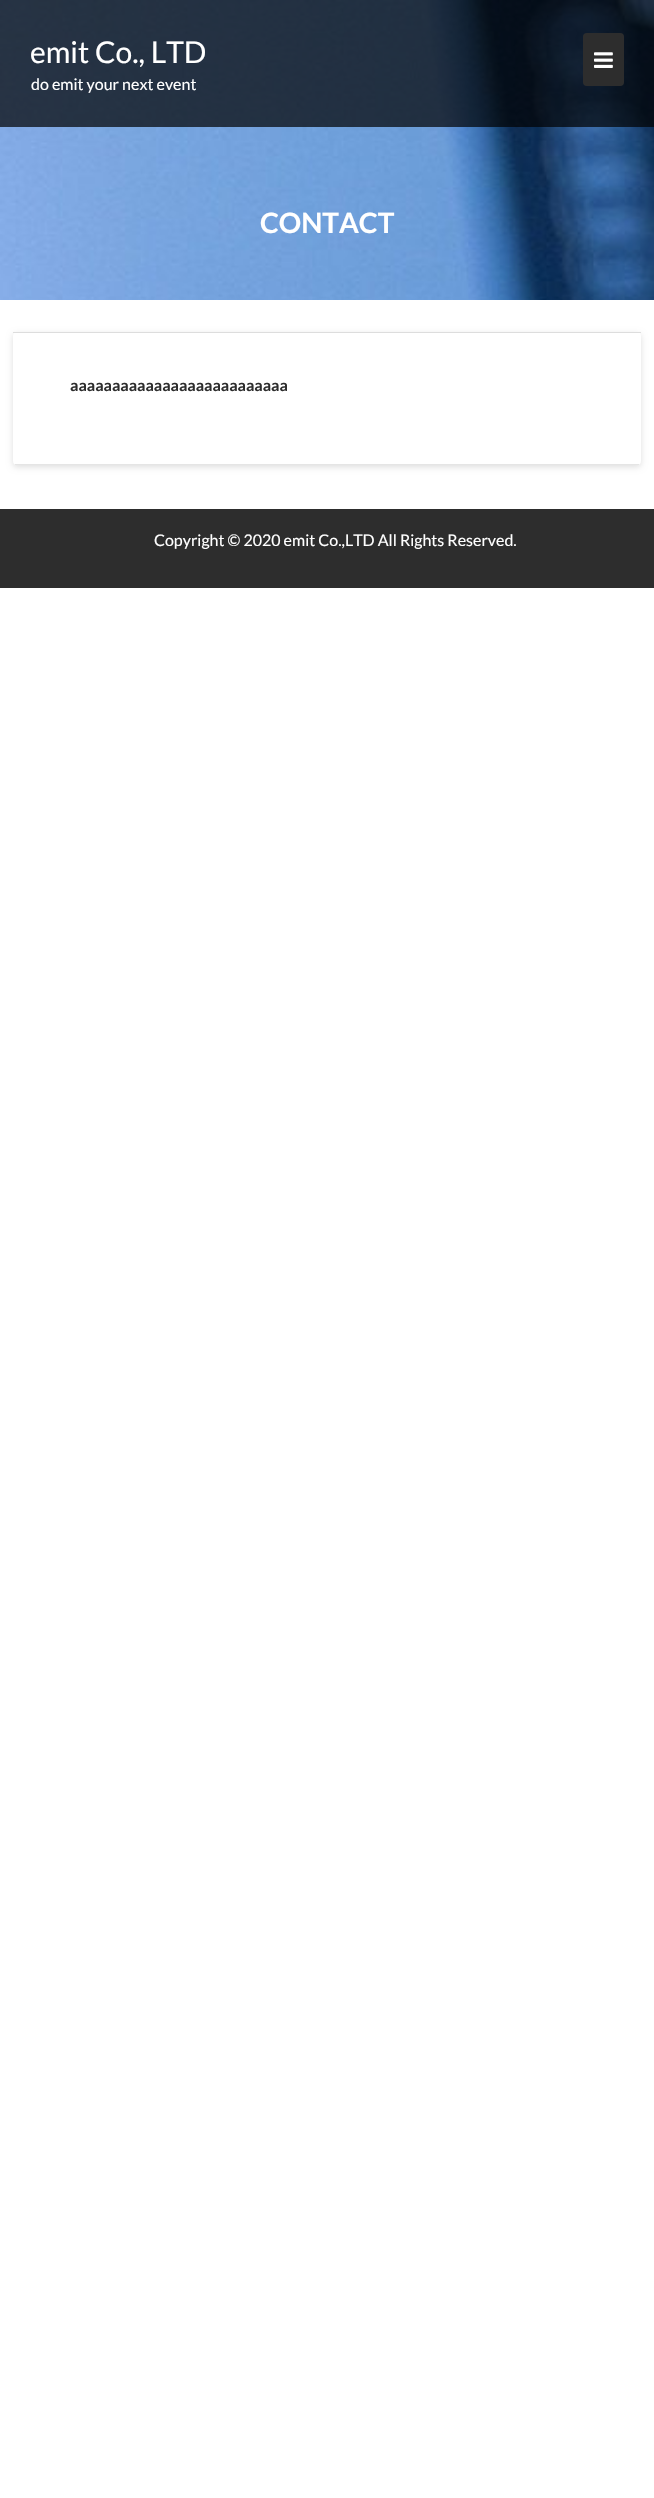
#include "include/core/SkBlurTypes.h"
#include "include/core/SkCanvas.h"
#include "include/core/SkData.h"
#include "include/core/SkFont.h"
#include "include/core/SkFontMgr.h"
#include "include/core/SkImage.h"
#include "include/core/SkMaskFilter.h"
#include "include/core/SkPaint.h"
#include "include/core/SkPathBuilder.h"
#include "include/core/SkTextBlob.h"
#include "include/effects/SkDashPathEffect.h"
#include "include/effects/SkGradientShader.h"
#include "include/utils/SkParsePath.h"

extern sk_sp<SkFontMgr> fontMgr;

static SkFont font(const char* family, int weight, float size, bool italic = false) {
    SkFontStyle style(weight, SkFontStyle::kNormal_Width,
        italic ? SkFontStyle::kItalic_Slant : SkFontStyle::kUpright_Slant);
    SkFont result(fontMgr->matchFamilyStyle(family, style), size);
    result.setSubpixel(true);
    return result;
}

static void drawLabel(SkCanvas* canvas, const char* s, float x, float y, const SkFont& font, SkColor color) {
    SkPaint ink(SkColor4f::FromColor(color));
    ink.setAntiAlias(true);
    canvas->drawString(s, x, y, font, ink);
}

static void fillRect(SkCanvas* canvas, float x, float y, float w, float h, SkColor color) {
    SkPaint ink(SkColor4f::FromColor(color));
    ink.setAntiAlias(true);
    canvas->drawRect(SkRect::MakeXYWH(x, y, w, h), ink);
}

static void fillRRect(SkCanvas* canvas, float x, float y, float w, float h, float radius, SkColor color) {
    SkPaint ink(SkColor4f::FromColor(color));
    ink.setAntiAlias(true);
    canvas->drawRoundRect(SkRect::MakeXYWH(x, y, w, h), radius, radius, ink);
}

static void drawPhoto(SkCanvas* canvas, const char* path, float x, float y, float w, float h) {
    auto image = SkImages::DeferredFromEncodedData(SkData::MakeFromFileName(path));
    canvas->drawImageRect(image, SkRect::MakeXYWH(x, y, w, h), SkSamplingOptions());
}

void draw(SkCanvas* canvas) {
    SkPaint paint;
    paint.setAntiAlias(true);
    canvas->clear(0xFFFFFFFF);
    drawPhoto(canvas, "assets/img2.png", 0, 0, 654, 300);
    fillRect(canvas, 0, 0, 654, 127, 0xB3000000);
    SkFont font1 = font("Lato", 400, 30);
    drawLabel(canvas, "emit Co., LTD", 30, 63, font1, 0xFFFFFFFF);
    fillRRect(canvas, 583, 33, 41, 53, 4, 0xFF2D2D2D);
    drawPhoto(canvas, "assets/img1.png", 594, 52, 19, 16);
    SkFont font2 = font("Lato", 400, 16);
    drawLabel(canvas, "do emit your next event", 31, 90, font2, 0xFFFFFFFF);
    SkFont font3 = font("Lato", 700, 28);
    drawLabel(canvas, "CONTACT", 260, 233, font3, 0xFFFFFFFF);
    paint.setColor(0x21000000);
    paint.setMaskFilter(SkMaskFilter::MakeBlur(kNormal_SkBlurStyle, 3));
    canvas->drawRoundRect(SkRect::MakeXYWH(13, 334, 628, 133), 4, 4, paint);
    paint.setMaskFilter(nullptr);
    fillRRect(canvas, 13, 332, 628, 133, 4, 0xFFFFFFFF);
    fillRect(canvas, 15, 464, 624, 1, 0xFFE5E5E5);
    fillRect(canvas, 13, 332, 628, 1, 0xFFDDDDDD);
    SkFont font4 = font("Lato", 700, 16);
    drawLabel(canvas, "aaaaaaaaaaaaaaaaaaaaaaaaaa", 70, 391, font4, 0xFF2D2D2D);
    fillRect(canvas, 0, 509, 654, 79, 0xFF2D2D2D);
    drawLabel(canvas, "Copyright © 2020 emit Co.,LTD All Rights Reserved.", 154, 546, font2, 0xFFFFFFFF);
}
